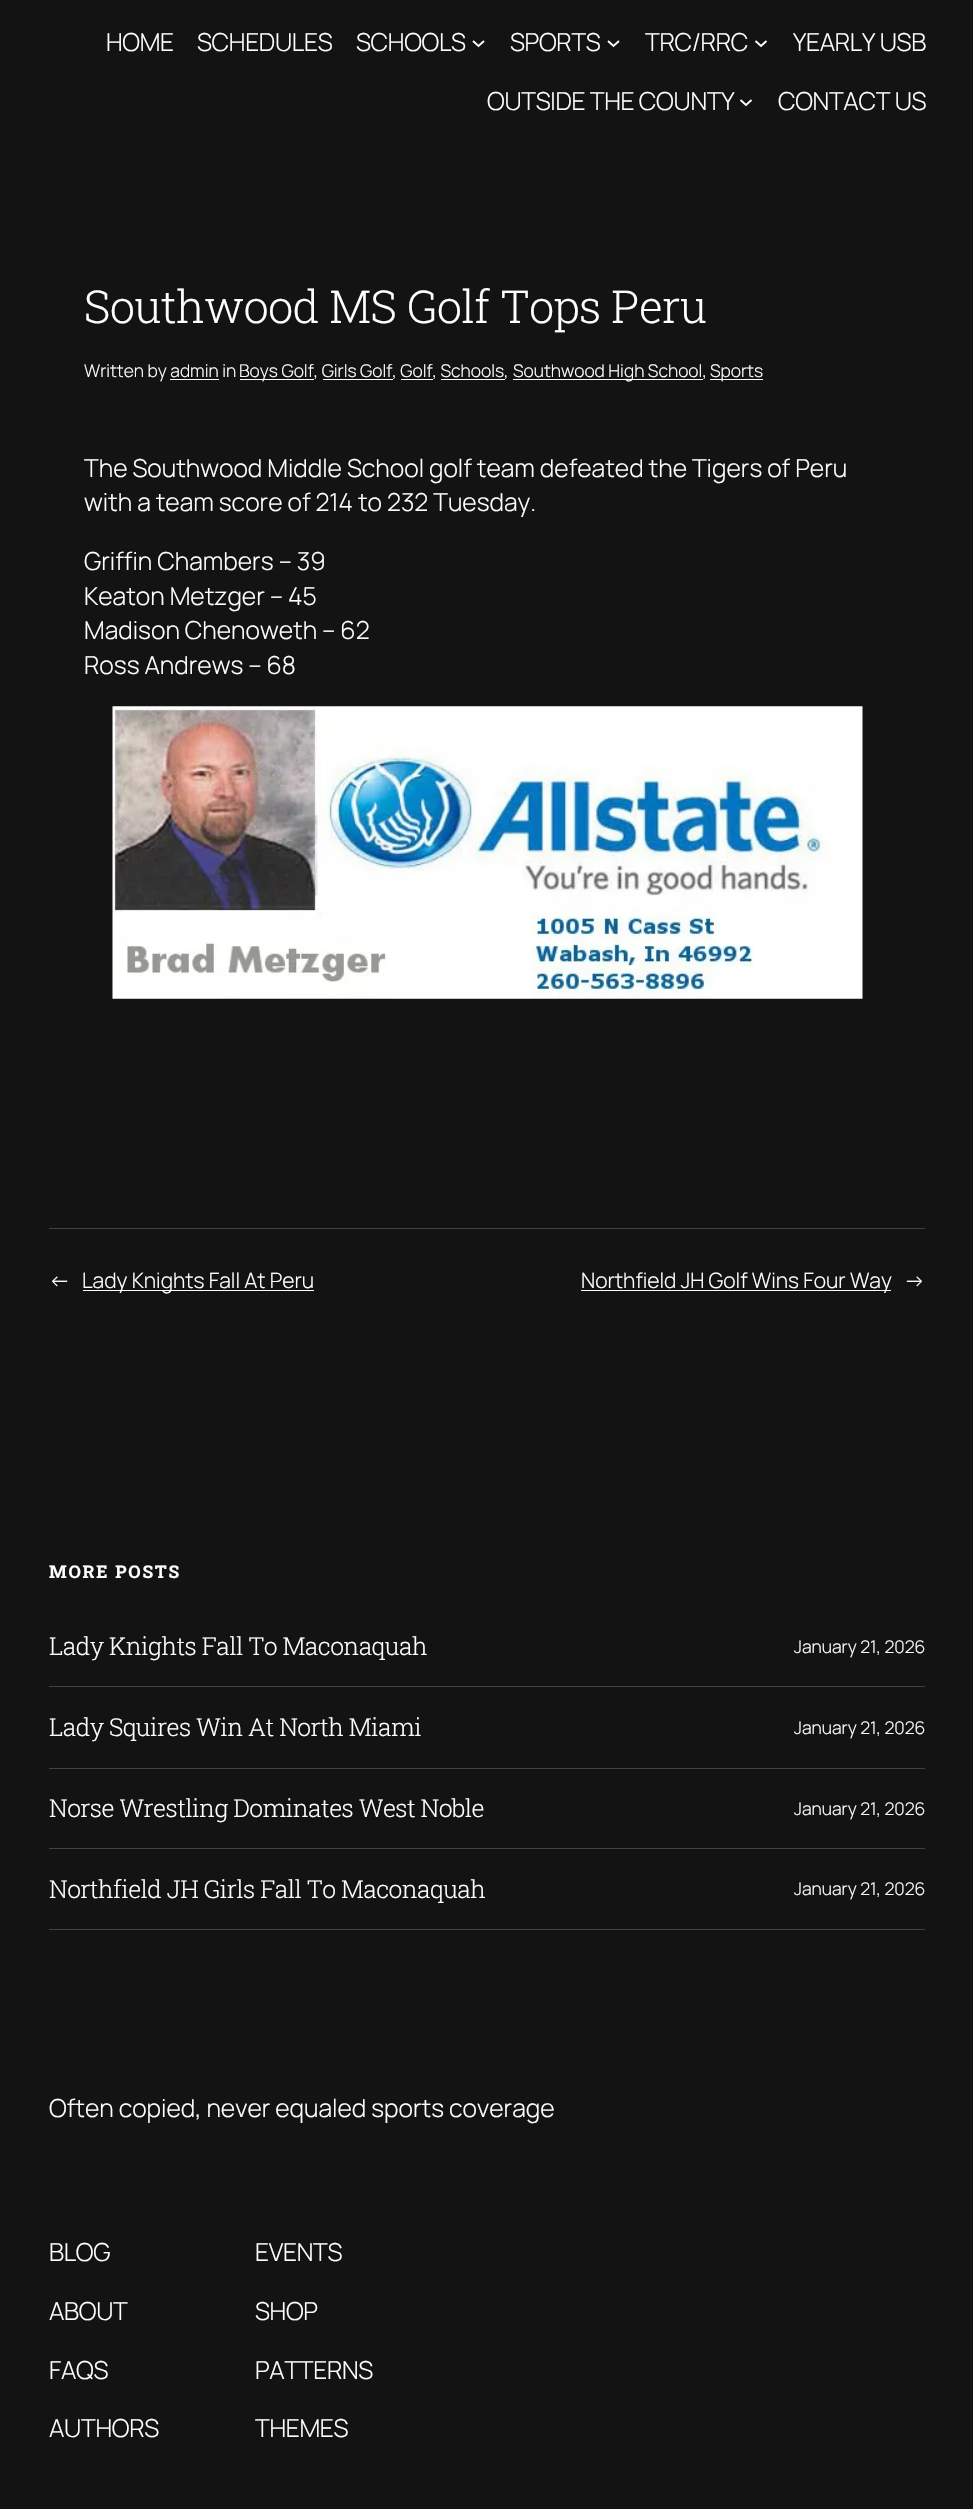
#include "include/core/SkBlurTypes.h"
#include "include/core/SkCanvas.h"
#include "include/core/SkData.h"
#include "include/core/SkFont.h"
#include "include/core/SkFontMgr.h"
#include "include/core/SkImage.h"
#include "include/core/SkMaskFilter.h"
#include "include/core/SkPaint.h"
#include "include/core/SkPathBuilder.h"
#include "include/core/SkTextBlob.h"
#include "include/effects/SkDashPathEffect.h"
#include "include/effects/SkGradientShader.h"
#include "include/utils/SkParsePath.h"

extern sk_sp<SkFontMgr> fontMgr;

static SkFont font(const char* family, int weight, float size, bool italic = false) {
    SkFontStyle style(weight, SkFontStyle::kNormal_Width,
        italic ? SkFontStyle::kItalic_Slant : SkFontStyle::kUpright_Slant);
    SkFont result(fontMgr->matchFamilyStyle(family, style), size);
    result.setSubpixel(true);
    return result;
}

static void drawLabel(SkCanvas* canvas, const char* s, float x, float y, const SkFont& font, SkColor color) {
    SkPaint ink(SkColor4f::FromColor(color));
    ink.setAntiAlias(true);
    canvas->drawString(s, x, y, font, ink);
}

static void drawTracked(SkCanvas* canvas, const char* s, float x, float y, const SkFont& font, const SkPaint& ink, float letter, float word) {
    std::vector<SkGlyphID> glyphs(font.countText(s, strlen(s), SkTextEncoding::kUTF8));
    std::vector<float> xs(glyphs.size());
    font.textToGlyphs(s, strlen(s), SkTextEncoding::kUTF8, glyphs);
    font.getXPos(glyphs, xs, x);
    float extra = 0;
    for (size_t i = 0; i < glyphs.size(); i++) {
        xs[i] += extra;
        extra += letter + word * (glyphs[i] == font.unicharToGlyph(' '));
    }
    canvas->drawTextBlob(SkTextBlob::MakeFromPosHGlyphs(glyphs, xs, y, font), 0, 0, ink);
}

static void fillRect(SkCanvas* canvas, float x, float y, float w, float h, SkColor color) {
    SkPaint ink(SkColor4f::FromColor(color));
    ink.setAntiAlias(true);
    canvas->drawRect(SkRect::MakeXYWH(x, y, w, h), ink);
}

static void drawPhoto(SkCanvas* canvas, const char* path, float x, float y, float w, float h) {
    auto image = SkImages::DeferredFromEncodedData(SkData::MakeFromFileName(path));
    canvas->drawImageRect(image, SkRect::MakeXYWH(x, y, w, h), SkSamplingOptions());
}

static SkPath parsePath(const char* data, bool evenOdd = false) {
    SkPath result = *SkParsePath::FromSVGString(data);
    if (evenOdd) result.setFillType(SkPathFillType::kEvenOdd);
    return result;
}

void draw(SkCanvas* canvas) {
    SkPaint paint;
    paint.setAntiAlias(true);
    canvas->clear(0xFF131313);
    SkFont font1 = font("Manrope", 300, 24.75f);
    paint.setColor(0xFFFFFFFF);
    drawTracked(canvas, "HOME", 106, 51, font1, paint, -0.3f, 0);
    drawTracked(canvas, "SCHEDULES", 197, 51, font1, paint, -0.3f, 0);
    drawTracked(canvas, "SCHOOLS", 356, 51, font1, paint, -0.3f, 0);
    paint.setStroke(true);
    paint.setStrokeWidth(1.9f);
    canvas->drawPath(parsePath("M473 41L478.5 46L484 41"), paint);
    paint.setStroke(false);
    drawTracked(canvas, "SPORTS", 510, 51, font1, paint, -0.3f, 0);
    paint.setStroke(true);
    canvas->drawPath(parsePath("M608 41L613.5 46L619 41"), paint);
    paint.setStroke(false);
    drawTracked(canvas, "TRC/RRC", 645, 51, font1, paint, -0.3f, 0);
    paint.setStroke(true);
    canvas->drawPath(parsePath("M755.5 41L761 46L766.5 41"), paint);
    paint.setStroke(false);
    drawTracked(canvas, "YEARLY USB", 793, 51, font1, paint, -0.3f, 0);
    drawTracked(canvas, "OUTSIDE THE COUNTY", 487, 110, font1, paint, -0.3f, 0);
    paint.setStroke(true);
    canvas->drawPath(parsePath("M740.5 100L746 105L751.5 100"), paint);
    paint.setStroke(false);
    drawTracked(canvas, "CONTACT US", 778, 110, font1, paint, -0.3f, 0);
    SkFont font2 = font("Roboto Slab", 300, 45.25f);
    drawTracked(canvas, "Southwood MS Golf Tops Peru", 84, 323, font2, paint, -0.6f, 0);
    SkFont font3 = font("Manrope", 300, 17.5f);
    drawLabel(canvas, "Written by admin in", 84, 377, font3, 0xFFFFFFFF);
    fillRect(canvas, 240, 379, 74, 1, 0xFFFFFFFF);
    drawLabel(canvas, "Boys Golf, Girls Golf, Golf, Schools,", 239, 377, font3, 0xFFFFFFFF);
    fillRect(canvas, 513, 379, 190, 1, 0xFFFFFFFF);
    drawLabel(canvas, "Southwood High School,", 513, 377, font3, 0xFFFFFFFF);
    fillRect(canvas, 710, 379, 53, 1, 0xFFFFFFFF);
    drawLabel(canvas, "Sports", 710, 377, font3, 0xFFFFFFFF);
    fillRect(canvas, 323, 379, 70, 1, 0xFFFFFFFF);
    fillRect(canvas, 401, 379, 32, 1, 0xFFFFFFFF);
    fillRect(canvas, 441, 379, 64, 1, 0xFFFFFFFF);
    fillRect(canvas, 170, 379, 49, 1, 0xFFFFFFFF);
    drawLabel(canvas, "The Southwood Middle School golf team defeated the Tigers of Peru", 84, 477, font1, 0xFFFFFFFF);
    drawLabel(canvas, "with a team score of 214 to 232 Tuesday.", 84, 511, font1, 0xFFFFFFFF);
    drawLabel(canvas, "Griffin Chambers – 39", 84, 570, font1, 0xFFFFFFFF);
    drawLabel(canvas, "Keaton Metzger – 45", 84, 605, font1, 0xFFFFFFFF);
    drawLabel(canvas, "Madison Chenoweth – 62", 84, 639, font1, 0xFFFFFFFF);
    drawLabel(canvas, "Ross Andrews – 68", 84, 674, font1, 0xFFFFFFFF);
    drawPhoto(canvas, "assets/img1.png", 112, 706, 751, 293);
    fillRect(canvas, 49, 1228, 876, 1, 0xFF424242);
    SkFont font4 = font("Manrope", 300, 21.1f);
    drawLabel(canvas, "←", 49, 1288, font4, 0xFFFFFFFF);
    fillRect(canvas, 83, 1290, 231, 1, 0xFFFFFFFF);
    drawLabel(canvas, "Lady Knights Fall At Peru", 82, 1288, font4, 0xFFFFFFFF);
    fillRect(canvas, 581, 1290, 310, 1, 0xFFFFFFFF);
    drawLabel(canvas, "Northfield JH Golf Wins Four Way", 581, 1288, font4, 0xFFFFFFFF);
    drawLabel(canvas, "→", 904, 1288, font4, 0xFFFFFFFF);
    SkFont font5 = font("Roboto Slab", 700, 17.5f);
    drawTracked(canvas, "MORE POSTS", 49, 1578, font5, paint, 1.75f, 0);
    fillRect(canvas, 49, 1686, 876, 1, 0xFF424242);
    SkFont font6 = font("Roboto Slab", 300, 24.75f);
    drawTracked(canvas, "Lady Knights Fall To Maconaquah", 49, 1655, font6, paint, -0.6f, 0);
    drawLabel(canvas, "January 21, 2026", 794, 1653, font3, 0xFFFFFFFF);
    fillRect(canvas, 49, 1768, 876, 1, 0xFF424242);
    drawTracked(canvas, "Lady Squires Win At North Miami", 49, 1736, font6, paint, -0.6f, 0);
    drawLabel(canvas, "January 21, 2026", 794, 1734, font3, 0xFFFFFFFF);
    fillRect(canvas, 49, 1848, 876, 1, 0xFF424242);
    drawTracked(canvas, "Norse Wrestling Dominates West Noble", 49, 1817, font6, paint, -0.6f, 0);
    drawLabel(canvas, "January 21, 2026", 794, 1815, font3, 0xFFFFFFFF);
    fillRect(canvas, 49, 1929, 876, 1, 0xFF424242);
    drawTracked(canvas, "Northfield JH Girls Fall To Maconaquah", 49, 1898, font6, paint, -0.6f, 0);
    drawLabel(canvas, "January 21, 2026", 794, 1895, font3, 0xFFFFFFFF);
    drawLabel(canvas, "Often copied, never equaled sports coverage", 49, 2117, font1, 0xFFFFFFFF);
    drawTracked(canvas, "BLOG", 49, 2261, font1, paint, -0.3f, 0);
    drawTracked(canvas, "ABOUT", 49, 2320, font1, paint, -0.3f, 0);
    drawTracked(canvas, "FAQS", 49, 2379, font1, paint, -0.3f, 0);
    drawTracked(canvas, "AUTHORS", 49, 2437, font1, paint, -0.3f, 0);
    drawTracked(canvas, "EVENTS", 255, 2261, font1, paint, -0.3f, 0);
    drawTracked(canvas, "SHOP", 255, 2320, font1, paint, -0.3f, 0);
    drawTracked(canvas, "PATTERNS", 255, 2379, font1, paint, -0.3f, 0);
    drawTracked(canvas, "THEMES", 255, 2437, font1, paint, -0.3f, 0);
}
